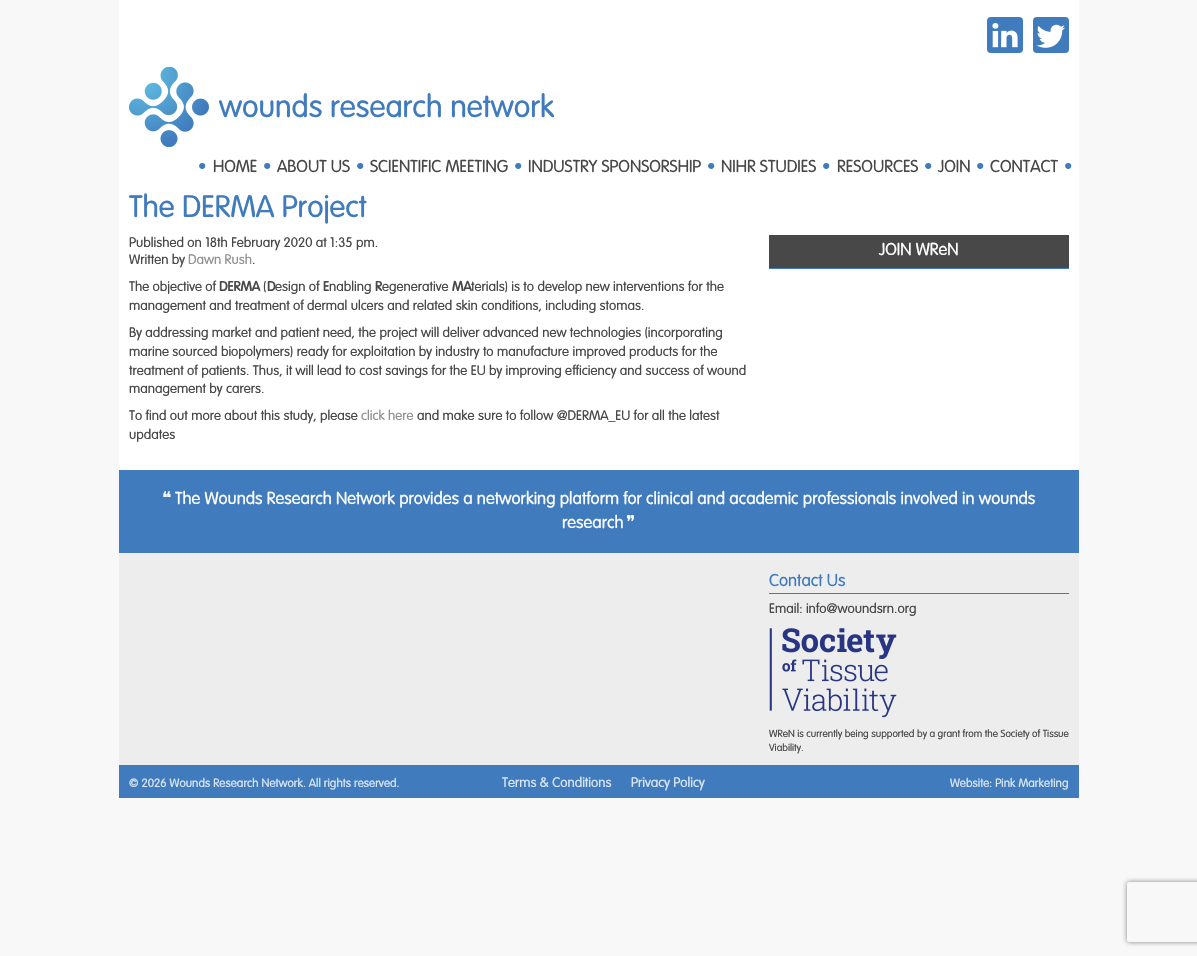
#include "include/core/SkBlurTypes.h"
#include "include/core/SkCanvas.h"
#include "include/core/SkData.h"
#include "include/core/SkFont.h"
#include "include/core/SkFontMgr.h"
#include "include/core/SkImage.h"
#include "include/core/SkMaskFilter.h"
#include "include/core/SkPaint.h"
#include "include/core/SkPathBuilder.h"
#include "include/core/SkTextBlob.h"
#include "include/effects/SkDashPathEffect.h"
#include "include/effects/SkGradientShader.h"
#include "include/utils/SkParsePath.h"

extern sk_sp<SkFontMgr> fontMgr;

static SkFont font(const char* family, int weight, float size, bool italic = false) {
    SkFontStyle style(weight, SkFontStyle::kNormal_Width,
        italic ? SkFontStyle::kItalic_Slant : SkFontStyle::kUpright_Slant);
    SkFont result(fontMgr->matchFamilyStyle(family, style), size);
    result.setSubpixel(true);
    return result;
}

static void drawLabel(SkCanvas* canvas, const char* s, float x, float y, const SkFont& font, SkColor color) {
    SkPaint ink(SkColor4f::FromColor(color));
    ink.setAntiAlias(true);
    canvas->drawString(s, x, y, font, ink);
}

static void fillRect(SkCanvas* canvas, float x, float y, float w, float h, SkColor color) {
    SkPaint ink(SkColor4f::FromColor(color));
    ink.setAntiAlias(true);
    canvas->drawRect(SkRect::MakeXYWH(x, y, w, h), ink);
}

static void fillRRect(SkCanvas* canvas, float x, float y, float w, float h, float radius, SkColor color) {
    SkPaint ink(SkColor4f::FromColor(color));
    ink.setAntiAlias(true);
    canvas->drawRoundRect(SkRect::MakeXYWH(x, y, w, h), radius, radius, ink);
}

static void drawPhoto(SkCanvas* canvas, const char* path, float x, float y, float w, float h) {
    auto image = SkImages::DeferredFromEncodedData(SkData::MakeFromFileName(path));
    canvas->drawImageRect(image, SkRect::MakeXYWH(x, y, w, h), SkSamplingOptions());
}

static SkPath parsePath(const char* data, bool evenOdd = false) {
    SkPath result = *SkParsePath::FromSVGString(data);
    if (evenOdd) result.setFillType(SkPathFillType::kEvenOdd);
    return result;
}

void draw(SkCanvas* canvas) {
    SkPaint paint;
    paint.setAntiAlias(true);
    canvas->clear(0xFFF8F8F8);
    fillRect(canvas, 119, 0, 960, 470, 0xFFFFFFFF);
    fillRRect(canvas, 987, 17, 36, 36, 4, 0xFF407BBE);
    drawPhoto(canvas, "assets/img1.png", 992, 23, 26, 25);
    fillRRect(canvas, 1033, 17, 36, 36, 4, 0xFF407BBE);
    drawPhoto(canvas, "assets/img2.png", 1036, 24, 29, 24);
    drawPhoto(canvas, "assets/img3.png", 129, 67, 80, 80);
    SkFont font1 = font("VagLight", 300, 32);
    drawLabel(canvas, "wounds research network", 219, 117, font1, 0xFF407BBE);
    SkFont font2 = font("VagLight", 300, 17.5f);
    drawLabel(canvas, "•", 198, 172, font2, 0xFF407BBE);
    drawLabel(canvas, "HOME", 213, 172, font2, 0xFF484848);
    drawLabel(canvas, "•", 263, 172, font2, 0xFF407BBE);
    drawLabel(canvas, "ABOUT US", 277, 172, font2, 0xFF484848);
    drawLabel(canvas, "•", 356, 172, font2, 0xFF407BBE);
    drawLabel(canvas, "SCIENTIFIC MEETING", 370, 172, font2, 0xFF484848);
    drawLabel(canvas, "•", 514, 172, font2, 0xFF407BBE);
    drawLabel(canvas, "INDUSTRY SPONSORSHIP", 528, 172, font2, 0xFF484848);
    drawLabel(canvas, "•", 707, 172, font2, 0xFF407BBE);
    drawLabel(canvas, "NIHR STUDIES", 721, 172, font2, 0xFF484848);
    drawLabel(canvas, "•", 822, 172, font2, 0xFF407BBE);
    drawLabel(canvas, "RESOURCES", 837, 172, font2, 0xFF484848);
    drawLabel(canvas, "•", 924, 172, font2, 0xFF407BBE);
    drawLabel(canvas, "JOIN", 938, 172, font2, 0xFF484848);
    drawLabel(canvas, "•", 976, 172, font2, 0xFF407BBE);
    drawLabel(canvas, "CONTACT", 990, 172, font2, 0xFF484848);
    drawLabel(canvas, "•", 1064, 172, font2, 0xFF407BBE);
    canvas->save();
    canvas->clipRect(SkRect::MakeXYWH(129, 189, 620, 264));
    SkFont font3 = font("VagLight", 300, 31.5f);
    drawLabel(canvas, "The DERMA Project", 129, 217, font3, 0xFF407BBE);
    canvas->restore();
    SkFont font4 = font("VagLight", 300, 14);
    drawLabel(canvas, "Published on 18th February 2020 at 1:35 pm.", 129, 247, font4, 0xFF484848);
    drawLabel(canvas, "Written by", 129, 264, font4, 0xFF484848);
    drawLabel(canvas, "Dawn Rush", 188, 264, font4, 0xFF919191);
    drawLabel(canvas, ".", 252, 264, font4, 0xFF484848);
    drawLabel(canvas, "The objective of", 129, 291, font4, 0xFF484848);
    SkFont font5 = font("VagLight", 700, 14);
    drawLabel(canvas, "DERMA", 219, 291, font5, 0xFF484848);
    drawLabel(canvas, "(", 263, 291, font4, 0xFF484848);
    drawLabel(canvas, "D", 267, 291, font5, 0xFF484848);
    drawLabel(canvas, "esign of", 275, 291, font4, 0xFF484848);
    drawLabel(canvas, "E", 323, 291, font5, 0xFF484848);
    drawLabel(canvas, "nabling", 329, 291, font4, 0xFF484848);
    drawLabel(canvas, "R", 375, 291, font5, 0xFF484848);
    drawLabel(canvas, "egenerative", 382, 291, font4, 0xFF484848);
    drawLabel(canvas, "MA", 452, 291, font5, 0xFF484848);
    drawLabel(canvas, "terials) is to develop new interventions for the", 471, 291, font4, 0xFF484848);
    drawLabel(canvas, "management and treatment of dermal ulcers and related skin conditions, including stomas.", 129, 310, font4, 0xFF484848);
    drawLabel(canvas, "By addressing market and patient need, the project will deliver advanced new technologies (incorporating", 129, 337, font4, 0xFF484848);
    drawLabel(canvas, "marine sourced biopolymers) ready for exploitation by industry to manufacture improved products for the", 129, 356, font4, 0xFF484848);
    drawLabel(canvas, "treatment of patients. Thus, it will lead to cost savings for the EU by improving efficiency and success of wound", 129, 375, font4, 0xFF484848);
    drawLabel(canvas, "management by carers.", 129, 393, font4, 0xFF484848);
    drawLabel(canvas, "To find out more about this study, please", 129, 420, font4, 0xFF484848);
    drawLabel(canvas, "click here", 361, 420, font4, 0xFF919191);
    drawLabel(canvas, "and make sure to follow @DERMA_EU for all the latest", 417, 420, font4, 0xFF484848);
    drawLabel(canvas, "updates", 129, 439, font4, 0xFF484848);
    fillRect(canvas, 769, 235, 300, 33, 0xFF484848);
    fillRect(canvas, 769, 268, 300, 1, 0xFF407BBE);
    drawLabel(canvas, "JOIN WReN", 879, 255, font2, 0xFFFFFFFF);
    fillRect(canvas, 119, 470, 960, 83, 0xFF407BBE);
    SkFont font6 = font("DejaVu Sans", 400, 17.5f);
    drawLabel(canvas, "❝", 162, 504, font6, 0xFFFFFFFF);
    drawLabel(canvas, "The Wounds Research Network provides a networking platform for clinical and academic professionals involved in wounds", 175, 504, font2, 0xFFFFFFFF);
    drawLabel(canvas, "research", 562, 528, font2, 0xFFFFFFFF);
    drawLabel(canvas, "❞", 626, 528, font6, 0xFFFFFFFF);
    fillRect(canvas, 119, 553, 960, 212, 0xFFEDEDED);
    fillRect(canvas, 769, 593, 300, 1, 0xFF407BBE);
    drawLabel(canvas, "Contact Us", 769, 586, font2, 0xFF407BBE);
    drawLabel(canvas, "Email: info@woundsrn.org", 769, 613, font4, 0xFF484848);
    drawPhoto(canvas, "assets/img4.png", 769, 628, 128, 90);
    SkFont font7 = font("VagLight", 300, 10.5f);
    drawLabel(canvas, "WReN is currently being supported by a grant from the Society of Tissue", 769, 737, font7, 0xFF484848);
    canvas->save();
    canvas->clipRect(SkRect::MakeXYWH(769, 570, 300, 194));
    drawLabel(canvas, "Viability.", 769, 751, font7, 0xFF484848);
    canvas->restore();
    fillRect(canvas, 119, 765, 960, 33, 0xFF407BBE);
    SkFont font8 = font("VagLight", 300, 12.25f);
    drawLabel(canvas, "© 2026 Wounds Research Network. All rights reserved.", 129, 787, font8, 0xFFD9E5F2);
    drawLabel(canvas, "Terms & Conditions", 502, 787, font4, 0xFFD9E5F2);
    drawLabel(canvas, "Privacy Policy", 631, 787, font4, 0xFFD9E5F2);
    drawLabel(canvas, "Website: Pink Marketing", 950, 787, font8, 0xFFD9E5F2);
    canvas->save();
    canvas->clipPath(parsePath("M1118 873H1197V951H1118ZM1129 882H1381C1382 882 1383 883 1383 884V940C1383 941 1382 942 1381 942H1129C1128 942 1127 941 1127 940V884C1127 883 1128 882 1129 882Z", true), true);
    paint.setColor(0xFF808080);
    paint.setMaskFilter(SkMaskFilter::MakeBlur(kNormal_SkBlurStyle, 2.5f));
    canvas->drawRoundRect(SkRect::MakeXYWH(1127, 882, 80, 60), 2, 2, paint);
    paint.setMaskFilter(nullptr);
    canvas->restore();
}
